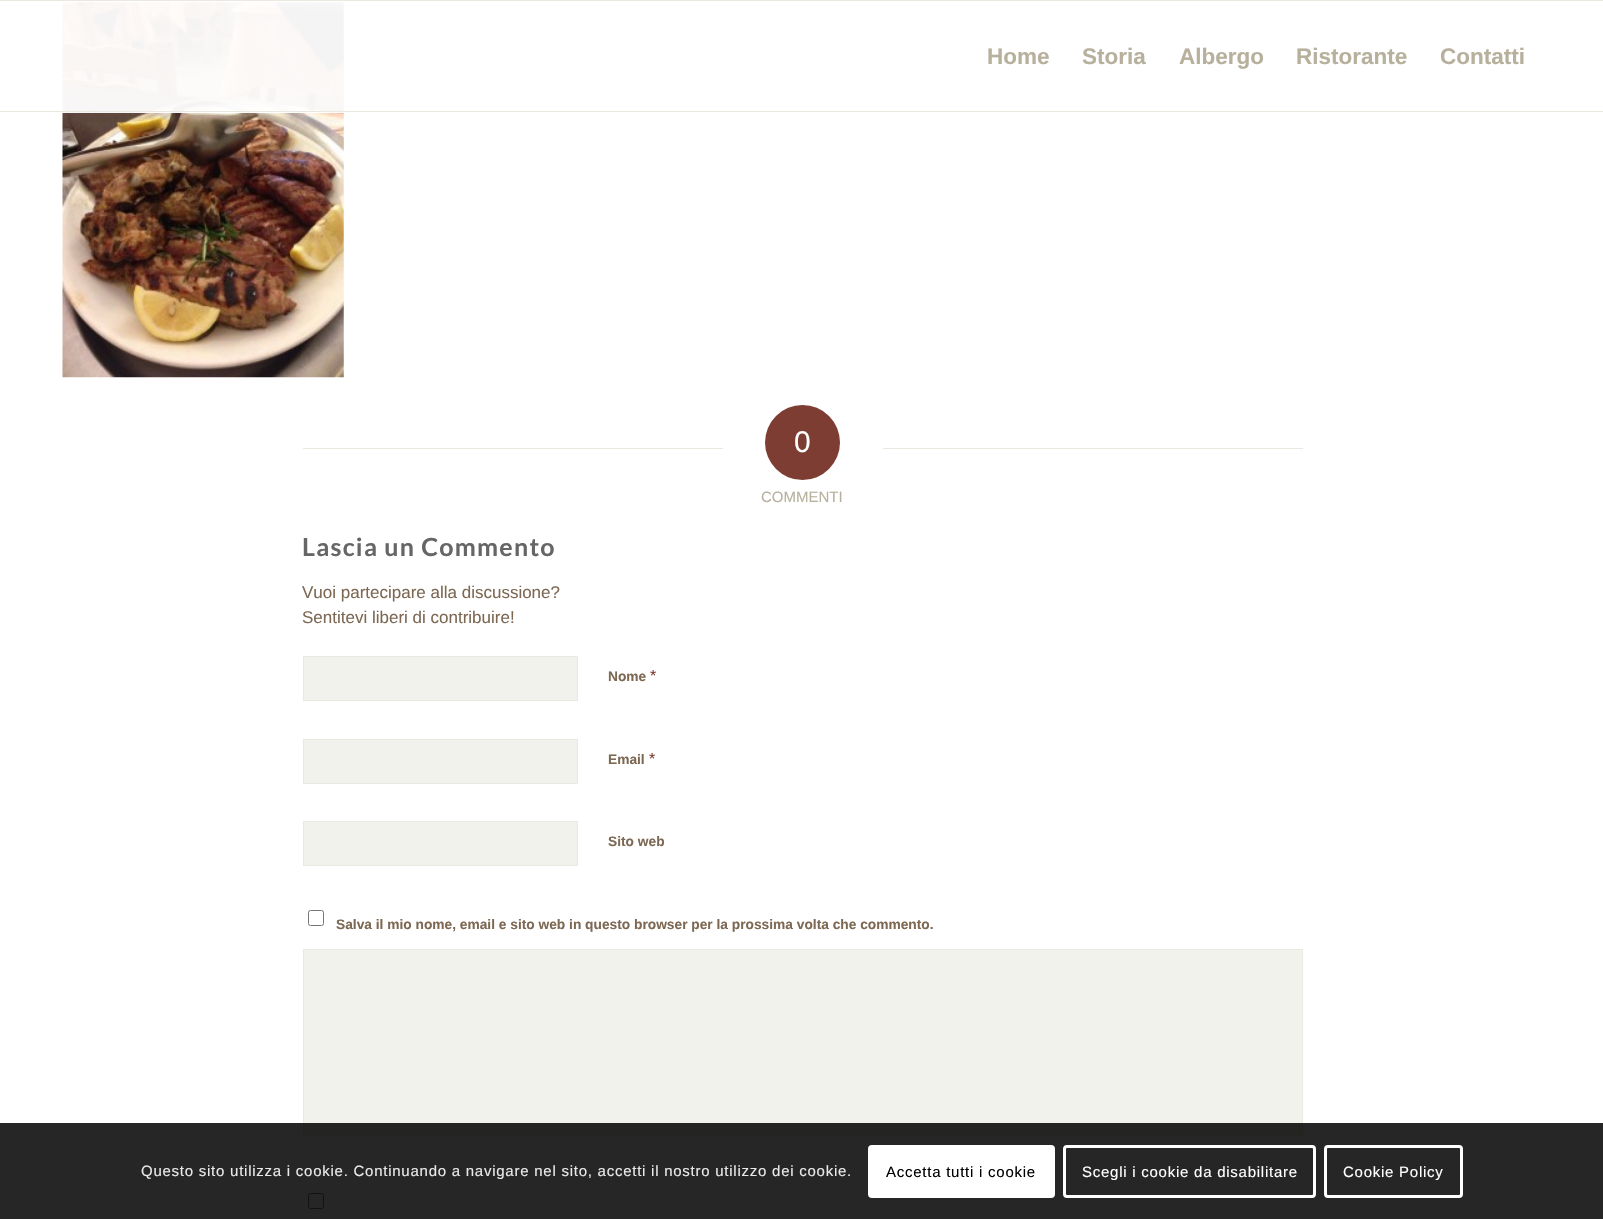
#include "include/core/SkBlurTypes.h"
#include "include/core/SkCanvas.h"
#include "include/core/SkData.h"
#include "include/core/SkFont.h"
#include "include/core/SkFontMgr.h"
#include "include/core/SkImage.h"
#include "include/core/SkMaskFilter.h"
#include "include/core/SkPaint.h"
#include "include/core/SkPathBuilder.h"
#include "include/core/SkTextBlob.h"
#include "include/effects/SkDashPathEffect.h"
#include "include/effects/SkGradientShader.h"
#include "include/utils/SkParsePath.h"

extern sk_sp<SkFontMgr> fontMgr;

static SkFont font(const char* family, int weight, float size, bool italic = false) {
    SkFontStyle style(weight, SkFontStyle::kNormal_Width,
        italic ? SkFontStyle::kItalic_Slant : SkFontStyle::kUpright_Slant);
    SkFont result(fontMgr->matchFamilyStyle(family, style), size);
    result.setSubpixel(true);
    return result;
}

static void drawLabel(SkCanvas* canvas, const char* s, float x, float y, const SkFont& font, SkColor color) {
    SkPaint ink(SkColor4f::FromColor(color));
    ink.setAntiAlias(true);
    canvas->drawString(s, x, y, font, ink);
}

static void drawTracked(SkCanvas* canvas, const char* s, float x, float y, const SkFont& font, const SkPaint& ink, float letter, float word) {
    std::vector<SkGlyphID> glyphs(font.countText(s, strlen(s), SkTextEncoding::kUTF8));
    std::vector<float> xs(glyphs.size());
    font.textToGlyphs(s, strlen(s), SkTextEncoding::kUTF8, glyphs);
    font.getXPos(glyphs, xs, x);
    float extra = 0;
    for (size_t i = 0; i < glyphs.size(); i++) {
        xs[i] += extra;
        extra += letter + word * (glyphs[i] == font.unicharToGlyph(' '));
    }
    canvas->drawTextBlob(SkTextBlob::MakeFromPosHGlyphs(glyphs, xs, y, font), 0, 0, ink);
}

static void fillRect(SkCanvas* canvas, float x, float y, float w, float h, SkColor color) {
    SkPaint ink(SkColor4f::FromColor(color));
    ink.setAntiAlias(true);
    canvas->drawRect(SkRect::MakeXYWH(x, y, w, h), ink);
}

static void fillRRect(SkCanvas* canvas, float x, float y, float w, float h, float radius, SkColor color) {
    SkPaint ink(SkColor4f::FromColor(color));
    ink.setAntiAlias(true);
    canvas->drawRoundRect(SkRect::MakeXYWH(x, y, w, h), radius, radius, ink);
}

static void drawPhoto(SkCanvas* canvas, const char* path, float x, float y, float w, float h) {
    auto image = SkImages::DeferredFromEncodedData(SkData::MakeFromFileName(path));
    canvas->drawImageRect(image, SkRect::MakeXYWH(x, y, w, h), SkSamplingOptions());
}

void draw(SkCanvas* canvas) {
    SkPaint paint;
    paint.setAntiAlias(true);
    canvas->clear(0xFFFFFFFF);
    drawPhoto(canvas, "assets/img1.png", 62, 2, 282, 376);
    fillRect(canvas, 62, 2, 282, 111, 0xF2FFFFFF);
    fillRect(canvas, 0, 0, 1603, 1, 0xFFEBE8E2);
    fillRect(canvas, 0, 111, 1603, 1, 0xFFEBE8E2);
    SkFont font1 = font("Liberation Sans", 700, 22.5f);
    drawLabel(canvas, "Home", 987, 64, font1, 0xFFB6B09C);
    drawLabel(canvas, "Storia", 1082, 64, font1, 0xFFB6B09C);
    drawLabel(canvas, "Albergo", 1179, 64, font1, 0xFFB6B09C);
    drawLabel(canvas, "Ristorante", 1296, 64, font1, 0xFFB6B09C);
    drawLabel(canvas, "Contatti", 1440, 64, font1, 0xFFB6B09C);
    fillRect(canvas, 303, 448, 420, 1, 0xFFEBE8E2);
    paint.setColor(0xFF7E3D32);
    canvas->drawCircle(802.5f, 442.5f, 37.5f, paint);
    SkFont font2 = font("Liberation Sans", 400, 30);
    drawLabel(canvas, "0", 794, 452, font2, 0xFFFFFFFF);
    fillRect(canvas, 883, 448, 420, 1, 0xFFEBE8E2);
    SkFont font3 = font("Liberation Sans", 400, 15);
    drawLabel(canvas, "COMMENTI", 761, 502, font3, 0xFFB6B09C);
    SkFont font4 = font("Lato", 700, 25);
    paint.setColor(0xFF666666);
    drawTracked(canvas, "Lascia un Commento", 302, 556, font4, paint, 1.25f, 0);
    SkFont font5 = font("Liberation Sans", 400, 17);
    drawLabel(canvas, "Vuoi partecipare alla discussione?", 302, 598, font5, 0xFF7C6853);
    drawLabel(canvas, "Sentitevi liberi di contribuire!", 302, 623, font5, 0xFF7C6853);
    paint.setColor(0xFFF1F2EB);
    canvas->drawRect(SkRect::MakeXYWH(303.5f, 656.5f, 274, 44), paint);
    paint.setStroke(true);
    paint.setStrokeWidth(1);
    paint.setColor(0xFFEBE8E2);
    canvas->drawRect(SkRect::MakeXYWH(303.5f, 656.5f, 274, 44), paint);
    SkFont font6 = font("Liberation Sans", 700, 13.75f);
    drawLabel(canvas, "Nome", 608, 681, font6, 0xFF7C6853);
    SkFont font7 = font("Liberation Sans", 400, 16);
    drawLabel(canvas, "*", 650, 681, font7, 0xFF7E3D32);
    paint.setStroke(false);
    paint.setColor(0xFFF1F2EB);
    canvas->drawRect(SkRect::MakeXYWH(303.5f, 739.5f, 274, 44), paint);
    paint.setStroke(true);
    paint.setColor(0xFFEBE8E2);
    canvas->drawRect(SkRect::MakeXYWH(303.5f, 739.5f, 274, 44), paint);
    drawLabel(canvas, "Email", 608, 764, font6, 0xFF7C6853);
    drawLabel(canvas, "*", 649, 764, font7, 0xFF7E3D32);
    paint.setStroke(false);
    paint.setColor(0xFFF1F2EB);
    canvas->drawRect(SkRect::MakeXYWH(303.5f, 821.5f, 274, 44), paint);
    paint.setStroke(true);
    paint.setColor(0xFFEBE8E2);
    canvas->drawRect(SkRect::MakeXYWH(303.5f, 821.5f, 274, 44), paint);
    drawLabel(canvas, "Sito web", 608, 846, font6, 0xFF7C6853);
    paint.setColor(0xFF767676);
    canvas->drawRoundRect(SkRect::MakeXYWH(308.5f, 910.5f, 15, 15), 2, 2, paint);
    drawLabel(canvas, "Salva il mio nome, email e sito web in questo browser per la prossima volta che commento.", 336, 929, font6, 0xFF7C6853);
    paint.setStroke(false);
    paint.setColor(0xFFF1F2EB);
    canvas->drawRect(SkRect::MakeXYWH(303.5f, 949.5f, 999, 186), paint);
    paint.setStroke(true);
    paint.setColor(0xFFEBE8E2);
    canvas->drawRect(SkRect::MakeXYWH(303.5f, 949.5f, 999, 186), paint);
    paint.setColor(0xFF767676);
    canvas->drawRoundRect(SkRect::MakeXYWH(308.5f, 1193.5f, 15, 15), 2, 2, paint);
    fillRect(canvas, 0, 1123, 1603, 96, 0xD9000000);
    paint.setStroke(false);
    paint.setColor(0xFFE9E9E9);
    drawTracked(canvas, "Questo sito utilizza i cookie. Continuando a navigare nel sito, accetti il nostro utilizzo dei cookie.", 141, 1176, font3, paint, 0.75f, 0);
    fillRRect(canvas, 868, 1145, 187, 53, 4, 0xFFFFFFFF);
    paint.setColor(0xFF000000);
    drawTracked(canvas, "Accetta tutti i cookie", 886, 1177, font3, paint, 0.75f, 0);
    paint.setStroke(true);
    paint.setStrokeWidth(3);
    paint.setColor(0xFFFFFFFF);
    canvas->drawRoundRect(SkRect::MakeXYWH(1064.5f, 1146.5f, 250, 50), 2.5f, 2.5f, paint);
    paint.setStroke(false);
    drawTracked(canvas, "Scegli i cookie da disabilitare", 1082, 1177, font3, paint, 0.75f, 0);
    paint.setStroke(true);
    canvas->drawRoundRect(SkRect::MakeXYWH(1325.5f, 1146.5f, 136, 50), 2.5f, 2.5f, paint);
    paint.setStroke(false);
    drawTracked(canvas, "Cookie Policy", 1343, 1177, font3, paint, 0.75f, 0);
}
